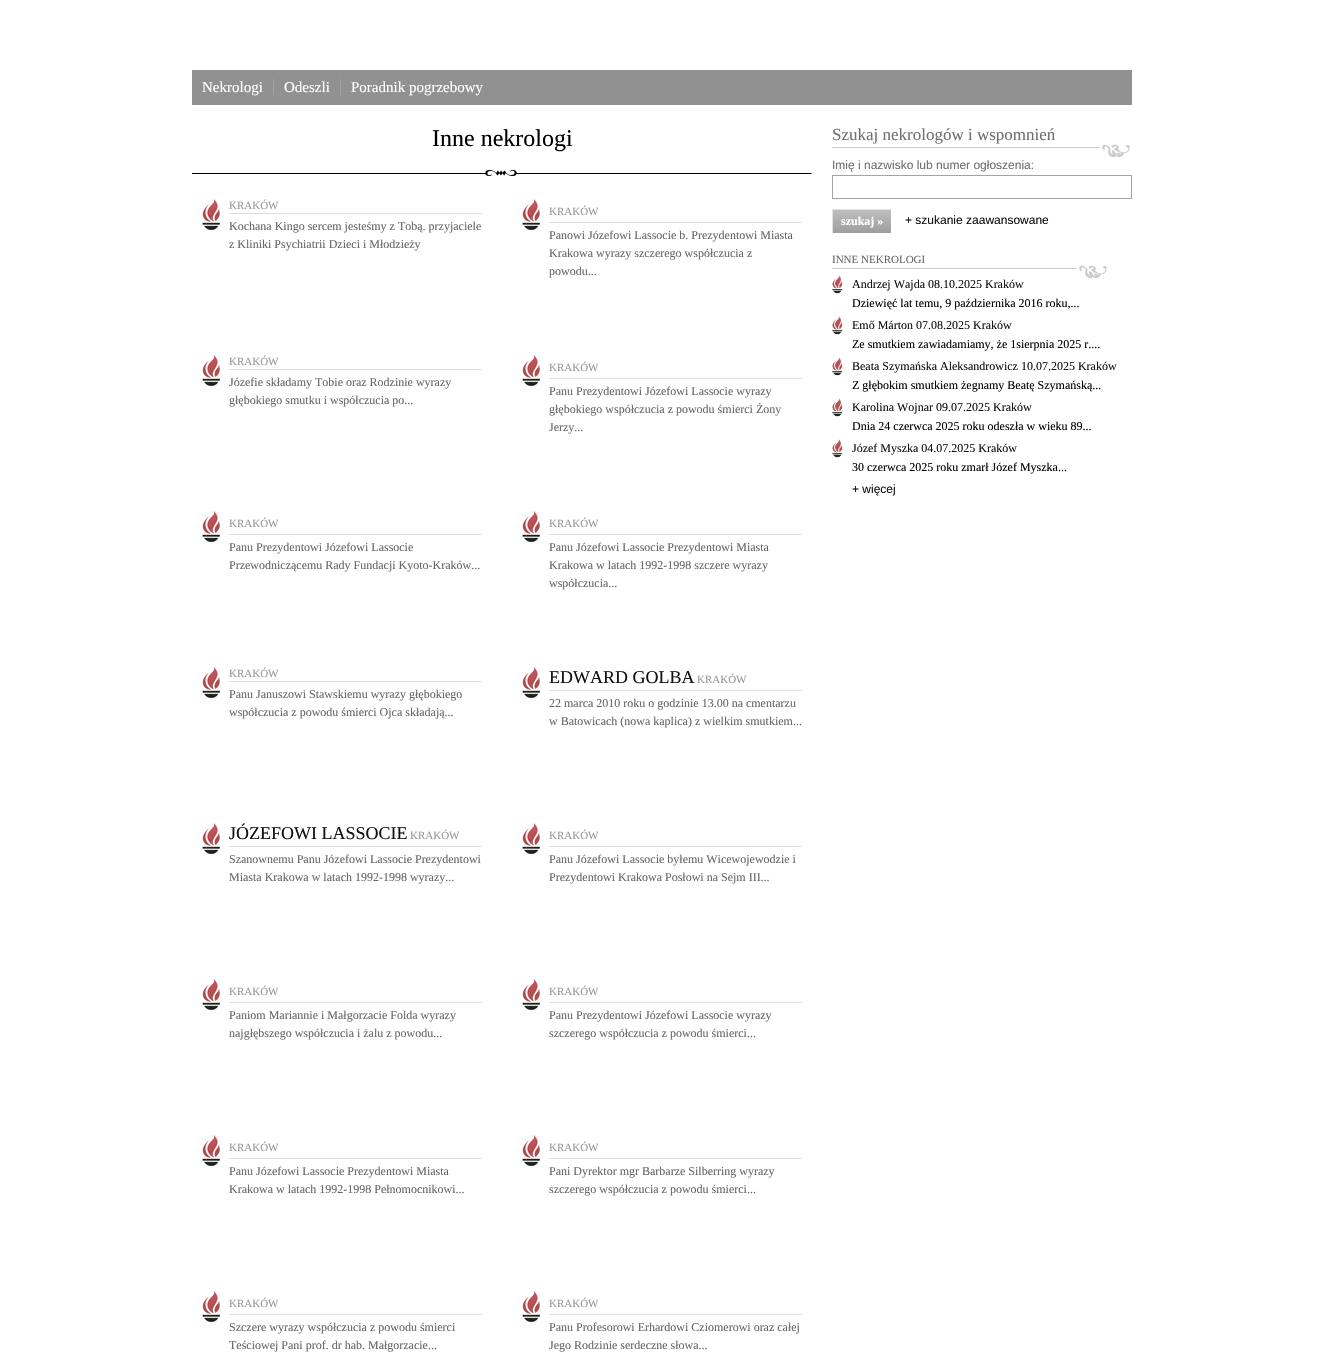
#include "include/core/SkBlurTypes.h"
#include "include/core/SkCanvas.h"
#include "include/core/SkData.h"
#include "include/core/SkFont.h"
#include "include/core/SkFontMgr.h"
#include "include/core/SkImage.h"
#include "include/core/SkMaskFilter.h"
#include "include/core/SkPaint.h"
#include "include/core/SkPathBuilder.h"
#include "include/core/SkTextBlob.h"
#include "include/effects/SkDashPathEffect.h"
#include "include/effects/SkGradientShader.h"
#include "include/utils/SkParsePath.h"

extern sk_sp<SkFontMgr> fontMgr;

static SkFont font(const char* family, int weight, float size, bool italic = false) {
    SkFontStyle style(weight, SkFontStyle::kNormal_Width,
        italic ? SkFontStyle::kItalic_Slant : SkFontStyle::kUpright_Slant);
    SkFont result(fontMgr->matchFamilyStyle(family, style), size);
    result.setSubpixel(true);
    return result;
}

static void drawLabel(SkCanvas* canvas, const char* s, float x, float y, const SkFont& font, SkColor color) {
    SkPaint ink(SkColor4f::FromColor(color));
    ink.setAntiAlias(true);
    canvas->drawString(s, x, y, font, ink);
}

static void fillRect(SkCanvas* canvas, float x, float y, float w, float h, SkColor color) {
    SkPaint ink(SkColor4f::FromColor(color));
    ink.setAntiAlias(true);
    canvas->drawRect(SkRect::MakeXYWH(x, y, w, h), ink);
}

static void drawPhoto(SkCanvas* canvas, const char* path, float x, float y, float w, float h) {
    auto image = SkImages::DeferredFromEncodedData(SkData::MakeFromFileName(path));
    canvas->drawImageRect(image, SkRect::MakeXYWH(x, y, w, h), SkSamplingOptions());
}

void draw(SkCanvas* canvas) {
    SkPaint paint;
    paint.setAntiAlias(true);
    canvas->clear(0xFFFFFFFF);
    fillRect(canvas, 192, 70, 940, 35, 0xFF919191);
    SkFont font1 = font("Liberation Serif", 400, 15);
    drawLabel(canvas, "Nekrologi", 202, 92, font1, 0xFFFFFFFF);
    drawLabel(canvas, "Odeszli", 284, 92, font1, 0xFFFFFFFF);
    fillRect(canvas, 273, 79, 1, 16, 0xFFA1A1A1);
    drawLabel(canvas, "Poradnik pogrzebowy", 351, 92, font1, 0xFFFFFFFF);
    fillRect(canvas, 340, 79, 1, 16, 0xFFA1A1A1);
    SkFont font2 = font("Liberation Serif", 400, 24);
    drawLabel(canvas, "Inne nekrologi", 432, 146, font2, 0xFF000000);
    drawPhoto(canvas, "assets/img1.png", 192, 170, 620, 6);
    drawPhoto(canvas, "assets/img2.png", 202, 199, 18, 31);
    fillRect(canvas, 229, 213, 253, 1, 0xFFDEDEDE);
    SkFont font3 = font("Liberation Serif", 400, 11);
    drawLabel(canvas, "KRAKÓW", 229, 209, font3, 0xFF999999);
    SkFont font4 = font("Liberation Serif", 400, 12);
    drawLabel(canvas, "Kochana Kingo sercem jesteśmy z Tobą. przyjaciele", 229, 230, font4, 0xFF666666);
    drawLabel(canvas, "z Kliniki Psychiatrii Dzieci i Młodzieży", 229, 248, font4, 0xFF666666);
    drawPhoto(canvas, "assets/img2.png", 522, 199, 18, 31);
    fillRect(canvas, 549, 222, 253, 1, 0xFFDEDEDE);
    drawLabel(canvas, "KRAKÓW", 549, 215, font3, 0xFF999999);
    drawLabel(canvas, "Panowi Józefowi Lassocie b. Prezydentowi Miasta", 549, 239, font4, 0xFF666666);
    drawLabel(canvas, "Krakowa wyrazy szczerego współczucia z", 549, 257, font4, 0xFF666666);
    drawLabel(canvas, "powodu...", 549, 275, font4, 0xFF666666);
    drawPhoto(canvas, "assets/img2.png", 202, 355, 18, 31);
    fillRect(canvas, 229, 369, 253, 1, 0xFFDEDEDE);
    drawLabel(canvas, "KRAKÓW", 229, 365, font3, 0xFF999999);
    drawLabel(canvas, "Józefie składamy Tobie oraz Rodzinie wyrazy", 229, 386, font4, 0xFF666666);
    drawLabel(canvas, "głębokiego smutku i współczucia po...", 229, 404, font4, 0xFF666666);
    drawPhoto(canvas, "assets/img2.png", 522, 355, 18, 31);
    fillRect(canvas, 549, 378, 253, 1, 0xFFDEDEDE);
    drawLabel(canvas, "KRAKÓW", 549, 371, font3, 0xFF999999);
    drawLabel(canvas, "Panu Prezydentowi Józefowi Lassocie wyrazy", 549, 395, font4, 0xFF666666);
    drawLabel(canvas, "głębokiego współczucia z powodu śmierci Żony", 549, 413, font4, 0xFF666666);
    drawLabel(canvas, "Jerzy...", 549, 431, font4, 0xFF666666);
    drawPhoto(canvas, "assets/img2.png", 202, 511, 18, 31);
    fillRect(canvas, 229, 534, 253, 1, 0xFFDEDEDE);
    drawLabel(canvas, "KRAKÓW", 229, 527, font3, 0xFF999999);
    drawLabel(canvas, "Panu Prezydentowi Józefowi Lassocie", 229, 551, font4, 0xFF666666);
    drawLabel(canvas, "Przewodniczącemu Rady Fundacji Kyoto-Kraków...", 229, 569, font4, 0xFF666666);
    drawPhoto(canvas, "assets/img2.png", 522, 511, 18, 31);
    fillRect(canvas, 549, 534, 253, 1, 0xFFDEDEDE);
    drawLabel(canvas, "KRAKÓW", 549, 527, font3, 0xFF999999);
    drawLabel(canvas, "Panu Józefowi Lassocie Prezydentowi Miasta", 549, 551, font4, 0xFF666666);
    drawLabel(canvas, "Krakowa w latach 1992-1998 szczere wyrazy", 549, 569, font4, 0xFF666666);
    drawLabel(canvas, "współczucia...", 549, 587, font4, 0xFF666666);
    drawPhoto(canvas, "assets/img2.png", 202, 667, 18, 31);
    fillRect(canvas, 229, 681, 253, 1, 0xFFDEDEDE);
    drawLabel(canvas, "KRAKÓW", 229, 677, font3, 0xFF999999);
    drawLabel(canvas, "Panu Januszowi Stawskiemu wyrazy głębokiego", 229, 698, font4, 0xFF666666);
    drawLabel(canvas, "współczucia z powodu śmierci Ojca składają...", 229, 716, font4, 0xFF666666);
    drawPhoto(canvas, "assets/img2.png", 522, 667, 18, 31);
    fillRect(canvas, 549, 690, 253, 1, 0xFFDEDEDE);
    SkFont font5 = font("Liberation Serif", 400, 18);
    drawLabel(canvas, "EDWARD GOLBA", 549, 683, font5, 0xFF111111);
    drawLabel(canvas, "KRAKÓW", 697, 683, font3, 0xFF999999);
    drawLabel(canvas, "22 marca 2010 roku o godzinie 13.00 na cmentarzu", 549, 707, font4, 0xFF666666);
    drawLabel(canvas, "w Batowicach (nowa kaplica) z wielkim smutkiem...", 549, 725, font4, 0xFF666666);
    drawPhoto(canvas, "assets/img2.png", 202, 823, 18, 31);
    fillRect(canvas, 229, 846, 253, 1, 0xFFDEDEDE);
    drawLabel(canvas, "JÓZEFOWI LASSOCIE", 229, 839, font5, 0xFF111111);
    drawLabel(canvas, "KRAKÓW", 410, 839, font3, 0xFF999999);
    drawLabel(canvas, "Szanownemu Panu Józefowi Lassocie Prezydentowi", 229, 863, font4, 0xFF666666);
    drawLabel(canvas, "Miasta Krakowa w latach 1992-1998 wyrazy...", 229, 881, font4, 0xFF666666);
    drawPhoto(canvas, "assets/img2.png", 522, 823, 18, 31);
    fillRect(canvas, 549, 846, 253, 1, 0xFFDEDEDE);
    drawLabel(canvas, "KRAKÓW", 549, 839, font3, 0xFF999999);
    drawLabel(canvas, "Panu Józefowi Lassocie byłemu Wicewojewodzie i", 549, 863, font4, 0xFF666666);
    drawLabel(canvas, "Prezydentowi Krakowa Posłowi na Sejm III...", 549, 881, font4, 0xFF666666);
    drawPhoto(canvas, "assets/img2.png", 202, 979, 18, 31);
    fillRect(canvas, 229, 1002, 253, 1, 0xFFDEDEDE);
    drawLabel(canvas, "KRAKÓW", 229, 995, font3, 0xFF999999);
    drawLabel(canvas, "Paniom Mariannie i Małgorzacie Folda wyrazy", 229, 1019, font4, 0xFF666666);
    drawLabel(canvas, "najgłębszego współczucia i żalu z powodu...", 229, 1037, font4, 0xFF666666);
    drawPhoto(canvas, "assets/img2.png", 522, 979, 18, 31);
    fillRect(canvas, 549, 1002, 253, 1, 0xFFDEDEDE);
    drawLabel(canvas, "KRAKÓW", 549, 995, font3, 0xFF999999);
    drawLabel(canvas, "Panu Prezydentowi Józefowi Lassocie wyrazy", 549, 1019, font4, 0xFF666666);
    drawLabel(canvas, "szczerego współczucia z powodu śmierci...", 549, 1037, font4, 0xFF666666);
    drawPhoto(canvas, "assets/img2.png", 202, 1135, 18, 31);
    fillRect(canvas, 229, 1158, 253, 1, 0xFFDEDEDE);
    drawLabel(canvas, "KRAKÓW", 229, 1151, font3, 0xFF999999);
    drawLabel(canvas, "Panu Józefowi Lassocie Prezydentowi Miasta", 229, 1175, font4, 0xFF666666);
    drawLabel(canvas, "Krakowa w latach 1992-1998 Pełnomocnikowi...", 229, 1193, font4, 0xFF666666);
    drawPhoto(canvas, "assets/img2.png", 522, 1135, 18, 31);
    fillRect(canvas, 549, 1158, 253, 1, 0xFFDEDEDE);
    drawLabel(canvas, "KRAKÓW", 549, 1151, font3, 0xFF999999);
    drawLabel(canvas, "Pani Dyrektor mgr Barbarze Silberring wyrazy", 549, 1175, font4, 0xFF666666);
    drawLabel(canvas, "szczerego współczucia z powodu śmierci...", 549, 1193, font4, 0xFF666666);
    drawPhoto(canvas, "assets/img2.png", 202, 1291, 18, 31);
    fillRect(canvas, 229, 1314, 253, 1, 0xFFDEDEDE);
    drawLabel(canvas, "KRAKÓW", 229, 1307, font3, 0xFF999999);
    drawLabel(canvas, "Szczere wyrazy współczucia z powodu śmierci", 229, 1331, font4, 0xFF666666);
    drawLabel(canvas, "Teściowej Pani prof. dr hab. Małgorzacie...", 229, 1349, font4, 0xFF666666);
    drawPhoto(canvas, "assets/img2.png", 522, 1291, 18, 31);
    fillRect(canvas, 549, 1314, 253, 1, 0xFFDEDEDE);
    drawLabel(canvas, "KRAKÓW", 549, 1307, font3, 0xFF999999);
    drawLabel(canvas, "Panu Profesorowi Erhardowi Cziomerowi oraz całej", 549, 1331, font4, 0xFF666666);
    drawLabel(canvas, "Jego Rodzinie serdeczne słowa...", 549, 1349, font4, 0xFF666666);
    drawPhoto(canvas, "assets/img3.png", 832, 144, 298, 14);
    SkFont font6 = font("Liberation Serif", 400, 17);
    drawLabel(canvas, "Szukaj nekrologów i wspomnień", 832, 140, font6, 0xFF6F6F6F);
    SkFont font7 = font("Liberation Sans", 400, 12);
    drawLabel(canvas, "Imię i nazwisko lub numer ogłoszenia:", 832, 169, font7, 0xFF6F6F6F);
    paint.setStroke(true);
    paint.setStrokeWidth(1);
    paint.setColor(0xFFA4A4A4);
    canvas->drawRect(SkRect::MakeXYWH(832.5f, 175.5f, 299, 23), paint);
    paint.setStroke(false);
    {
        const SkColor colors[] = {0xFFBEBEBE, 0xFF9E9E9E};
        const float stops[] = {0, 1};
        const SkPoint ends[] = {{862, 210}, {862, 233}};
        paint.setShader(SkGradientShader::MakeLinear(ends, colors, stops, 2, SkTileMode::kClamp));
        paint.setAlpha(255);
    }
    canvas->drawRect(SkRect::MakeXYWH(833, 210, 58, 23), paint);
    fillRect(canvas, 832, 209, 59, 1, 0xFFE2E2E2);
    fillRect(canvas, 832, 209, 1, 24, 0xFFE2E2E2);
    SkFont font8 = font("Liberation Serif", 700, 12);
    drawLabel(canvas, "szukaj »", 841, 225, font8, 0xFFFFFFFF);
    drawLabel(canvas, "+ szukanie zaawansowane", 905, 224, font7, 0xFF111111);
    drawPhoto(canvas, "assets/img4.png", 832, 265, 275, 14);
    drawLabel(canvas, "INNE NEKROLOGI", 832, 263, font3, 0xFF666666);
    drawPhoto(canvas, "assets/img5.png", 832, 275, 11, 19);
    drawLabel(canvas, "Andrzej Wajda 08.10.2025 Kraków", 852, 288, font4, 0xFF111111);
    drawLabel(canvas, "Dziewięć lat temu, 9 października 2016 roku,...", 852, 307, font4, 0xFF000000);
    drawPhoto(canvas, "assets/img5.png", 832, 316, 11, 19);
    drawLabel(canvas, "Emő Márton 07.08.2025 Kraków", 852, 329, font4, 0xFF111111);
    drawLabel(canvas, "Ze smutkiem zawiadamiamy, że 1sierpnia 2025 r....", 852, 348, font4, 0xFF000000);
    drawPhoto(canvas, "assets/img5.png", 832, 357, 11, 19);
    drawLabel(canvas, "Beata Szymańska Aleksandrowicz 10.07.2025 Kraków", 852, 370, font4, 0xFF111111);
    drawLabel(canvas, "Z głębokim smutkiem żegnamy Beatę Szymańską...", 852, 389, font4, 0xFF000000);
    drawPhoto(canvas, "assets/img5.png", 832, 398, 11, 19);
    drawLabel(canvas, "Karolina Wojnar 09.07.2025 Kraków", 852, 411, font4, 0xFF111111);
    drawLabel(canvas, "Dnia 24 czerwca 2025 roku odeszła w wieku 89...", 852, 430, font4, 0xFF000000);
    drawPhoto(canvas, "assets/img5.png", 832, 439, 11, 19);
    drawLabel(canvas, "Józef Myszka 04.07.2025 Kraków", 852, 452, font4, 0xFF111111);
    drawLabel(canvas, "30 czerwca 2025 roku zmarł Józef Myszka...", 852, 471, font4, 0xFF000000);
    drawLabel(canvas, "+ więcej", 852, 493, font7, 0xFF111111);
}
